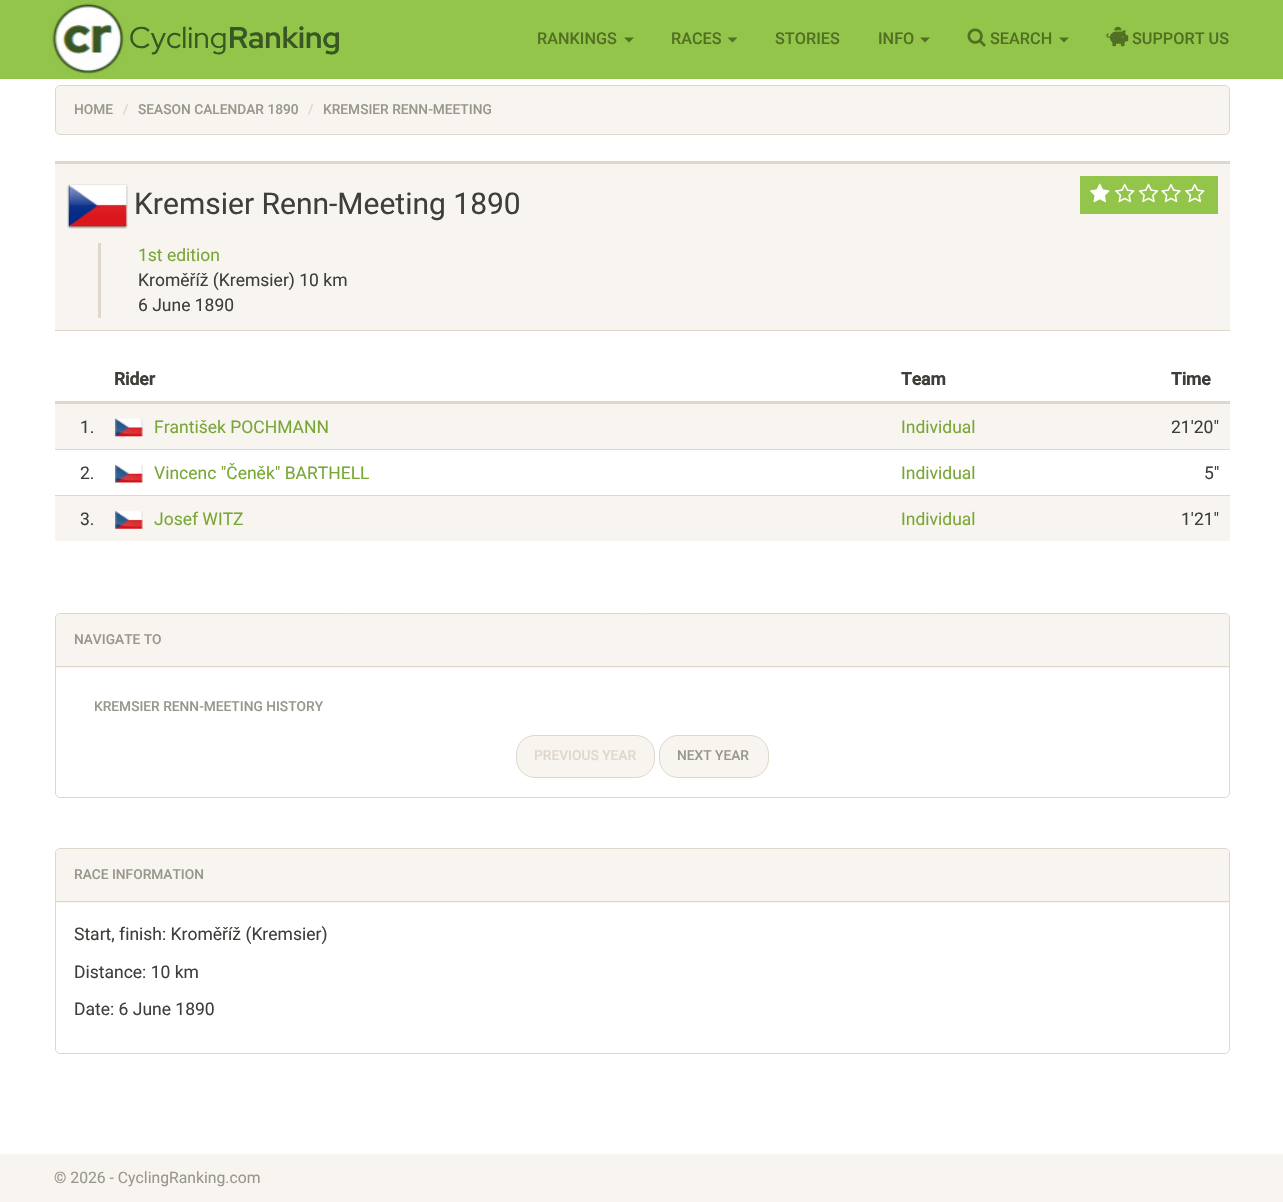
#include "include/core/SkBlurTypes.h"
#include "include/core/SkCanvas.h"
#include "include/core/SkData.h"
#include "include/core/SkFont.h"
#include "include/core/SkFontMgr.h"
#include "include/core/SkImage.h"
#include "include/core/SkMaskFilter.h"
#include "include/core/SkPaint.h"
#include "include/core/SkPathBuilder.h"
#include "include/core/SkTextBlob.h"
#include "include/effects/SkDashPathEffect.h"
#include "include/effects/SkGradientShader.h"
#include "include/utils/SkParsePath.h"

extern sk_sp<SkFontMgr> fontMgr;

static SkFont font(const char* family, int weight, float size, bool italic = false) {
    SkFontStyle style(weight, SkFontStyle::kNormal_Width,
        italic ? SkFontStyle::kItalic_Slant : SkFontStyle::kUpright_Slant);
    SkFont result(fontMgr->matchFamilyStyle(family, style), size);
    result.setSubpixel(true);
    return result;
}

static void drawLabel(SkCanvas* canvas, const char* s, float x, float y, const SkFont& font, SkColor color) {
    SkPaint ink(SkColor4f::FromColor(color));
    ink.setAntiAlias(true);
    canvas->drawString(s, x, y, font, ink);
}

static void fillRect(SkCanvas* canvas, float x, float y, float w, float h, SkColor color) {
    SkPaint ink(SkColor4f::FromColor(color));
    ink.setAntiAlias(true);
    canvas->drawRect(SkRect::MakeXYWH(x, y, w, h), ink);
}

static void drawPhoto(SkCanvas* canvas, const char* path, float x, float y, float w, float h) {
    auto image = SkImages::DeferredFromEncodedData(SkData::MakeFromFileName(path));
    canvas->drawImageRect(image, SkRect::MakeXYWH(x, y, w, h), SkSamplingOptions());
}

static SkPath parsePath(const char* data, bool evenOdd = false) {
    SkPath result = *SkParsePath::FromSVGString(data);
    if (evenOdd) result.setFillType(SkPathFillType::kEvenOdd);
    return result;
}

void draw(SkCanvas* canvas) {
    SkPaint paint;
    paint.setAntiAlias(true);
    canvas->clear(0xFFFFFFFF);
    fillRect(canvas, 0, 0, 1283, 79, 0xFF93C54B);
    drawPhoto(canvas, "assets/img1.png", 49, 0, 77, 78);
    SkFont font1 = font("Red Hat Display", 400, 30);
    drawLabel(canvas, "Cycling", 129, 48, font1, 0xFF385723);
    SkFont font2 = font("Red Hat Display", 700, 30);
    drawLabel(canvas, "Ranking", 228, 48, font2, 0xFF385723);
    SkFont font3 = font("Roboto", 500, 16.25f);
    drawLabel(canvas, "RANKINGS", 537, 44, font3, 0xFF517024);
    paint.setColor(0xFF517024);
    canvas->drawPath(parsePath("M624 37.5H634L629 42.5Z"), paint);
    drawLabel(canvas, "RACES", 671, 44, font3, 0xFF517024);
    canvas->drawPath(parsePath("M727.5 37.5H737.5L732.5 42.5Z"), paint);
    drawLabel(canvas, "STORIES", 775, 44, font3, 0xFF517024);
    drawLabel(canvas, "INFO", 878, 44, font3, 0xFF517024);
    canvas->drawPath(parsePath("M920 37.5H930L925 42.5Z"), paint);
    drawPhoto(canvas, "assets/img2.png", 967, 28, 19, 19);
    drawLabel(canvas, "SEARCH", 990, 44, font3, 0xFF517024);
    canvas->drawPath(parsePath("M1059 37.5H1069L1064 42.5Z"), paint);
    drawPhoto(canvas, "assets/img3.png", 1106, 26, 23, 21);
    drawLabel(canvas, "SUPPORT US", 1132, 44, font3, 0xFF517024);
    paint.setColor(0xFFF8F5F0);
    canvas->drawRoundRect(SkRect::MakeXYWH(55.5f, 85.5f, 1174, 49), 4.5f, 4.5f, paint);
    paint.setStroke(true);
    paint.setStrokeWidth(1);
    paint.setColor(0xFFDFD7CA);
    canvas->drawRoundRect(SkRect::MakeXYWH(55.5f, 85.5f, 1174, 49), 4.5f, 4.5f, paint);
    SkFont font4 = font("Roboto", 500, 13.75f);
    drawLabel(canvas, "HOME", 74, 114, font4, 0xFF98978B);
    drawLabel(canvas, "/", 123, 114, font4, 0xFFDFD7CA);
    drawLabel(canvas, "SEASON CALENDAR 1890", 138, 114, font4, 0xFF98978B);
    drawLabel(canvas, "/", 308, 114, font4, 0xFFDFD7CA);
    drawLabel(canvas, "KREMSIER RENN-MEETING", 323, 114, font4, 0xFF98978B);
    fillRect(canvas, 55, 164, 1175, 166, 0xFFF8F5F0);
    fillRect(canvas, 55, 161, 1175, 3, 0xFFDFD7CA);
    fillRect(canvas, 55, 330, 1175, 1, 0xFFDFD7CA);
    drawPhoto(canvas, "assets/img4.png", 67, 184, 61, 45);
    SkFont font5 = font("Roboto", 400, 30);
    drawLabel(canvas, "Kremsier Renn-Meeting 1890", 134, 214, font5, 0xFF3E3F3A);
    fillRect(canvas, 1080, 176, 138, 38, 0xFF93C54B);
    drawPhoto(canvas, "assets/img5.png", 1090, 183, 20, 20);
    drawPhoto(canvas, "assets/img6.png", 1115, 183, 20, 20);
    drawPhoto(canvas, "assets/img7.png", 1138, 183, 21, 20);
    drawPhoto(canvas, "assets/img8.png", 1161, 183, 20, 20);
    drawPhoto(canvas, "assets/img6.png", 1185, 183, 20, 20);
    fillRect(canvas, 98, 243, 3, 75, 0xFFDFD7CA);
    SkFont font6 = font("Roboto", 400, 17.5f);
    drawLabel(canvas, "1st edition", 138, 261, font6, 0xFF79A736);
    drawLabel(canvas, "Kroměříž (Kremsier) 10 km", 138, 286, font6, 0xFF3E3F3A);
    drawLabel(canvas, "6 June 1890", 138, 311, font6, 0xFF3E3F3A);
    SkFont font7 = font("Roboto", 700, 17.5f);
    drawLabel(canvas, "Rider", 114, 385, font7, 0xFF3E3F3A);
    drawLabel(canvas, "Team", 901, 385, font7, 0xFF3E3F3A);
    fillRect(canvas, 55, 401, 1175, 3, 0xFFDFD7CA);
    drawLabel(canvas, "Time", 1171, 385, font7, 0xFF3E3F3A);
    fillRect(canvas, 55, 404, 1175, 45, 0xFFF8F5F0);
    drawLabel(canvas, "1.", 80, 433, font6, 0xFF3E3F3A);
    drawPhoto(canvas, "assets/img9.png", 115, 418, 28, 19);
    drawLabel(canvas, "František POCHMANN", 154, 433, font6, 0xFF79A736);
    drawLabel(canvas, "Individual", 901, 433, font6, 0xFF79A736);
    drawLabel(canvas, "21'20\"", 1171, 433, font6, 0xFF3E3F3A);
    drawLabel(canvas, "2.", 80, 479, font6, 0xFF3E3F3A);
    drawPhoto(canvas, "assets/img10.png", 115, 465, 28, 18);
    drawLabel(canvas, "Vincenc \"Čeněk\" BARTHELL", 154, 479, font6, 0xFF79A736);
    drawLabel(canvas, "Individual", 901, 479, font6, 0xFF79A736);
    fillRect(canvas, 55, 449, 1175, 1, 0xFFDFD7CA);
    drawLabel(canvas, "5\"", 1204, 479, font6, 0xFF3E3F3A);
    fillRect(canvas, 55, 496, 1175, 45, 0xFFF8F5F0);
    drawLabel(canvas, "3.", 80, 525, font6, 0xFF3E3F3A);
    drawPhoto(canvas, "assets/img11.png", 115, 511, 28, 18);
    drawLabel(canvas, "Josef WITZ", 154, 525, font6, 0xFF79A736);
    drawLabel(canvas, "Individual", 901, 525, font6, 0xFF79A736);
    fillRect(canvas, 55, 495, 1175, 1, 0xFFDFD7CA);
    drawLabel(canvas, "1'21\"", 1181, 525, font6, 0xFF3E3F3A);
    canvas->drawRoundRect(SkRect::MakeXYWH(55.5f, 613.5f, 1174, 184), 4.5f, 4.5f, paint);
    paint.setStroke(false);
    paint.setColor(0xFFF8F5F0);
    canvas->drawPath(parsePath("M60 614H1225C1227 614 1229 616 1229 618V668H56V618C56 616 58 614 60 614Z"), paint);
    fillRect(canvas, 56, 666, 1173, 1, 0xFFDFD7CA);
    drawLabel(canvas, "NAVIGATE TO", 74, 644, font4, 0xFF98978B);
    drawLabel(canvas, "KREMSIER RENN-MEETING HISTORY", 94, 711, font4, 0xFF98978B);
    canvas->drawRoundRect(SkRect::MakeXYWH(516.5f, 735.5f, 138, 42), 18.5f, 18.5f, paint);
    paint.setStroke(true);
    paint.setColor(0xFFDFD7CA);
    canvas->drawRoundRect(SkRect::MakeXYWH(516.5f, 735.5f, 138, 42), 18.5f, 18.5f, paint);
    drawLabel(canvas, "PREVIOUS YEAR", 534, 760, font4, 0xFFDFD7CA);
    paint.setStroke(false);
    paint.setColor(0xFFF8F5F0);
    canvas->drawRoundRect(SkRect::MakeXYWH(659.5f, 735.5f, 109, 42), 18.5f, 18.5f, paint);
    paint.setStroke(true);
    paint.setColor(0xFFDFD7CA);
    canvas->drawRoundRect(SkRect::MakeXYWH(659.5f, 735.5f, 109, 42), 18.5f, 18.5f, paint);
    drawLabel(canvas, "NEXT YEAR", 677, 760, font4, 0xFF98978B);
    canvas->drawRoundRect(SkRect::MakeXYWH(55.5f, 848.5f, 1174, 205), 4.5f, 4.5f, paint);
    paint.setStroke(false);
    paint.setColor(0xFFF8F5F0);
    canvas->drawPath(parsePath("M60 849H1225C1227 849 1229 851 1229 853V903H56V853C56 851 58 849 60 849Z"), paint);
    fillRect(canvas, 56, 901, 1173, 1, 0xFFDFD7CA);
    drawLabel(canvas, "RACE INFORMATION", 74, 879, font4, 0xFF98978B);
    drawLabel(canvas, "Start, finish: Kroměříž (Kremsier)", 74, 940, font6, 0xFF3E3F3A);
    drawLabel(canvas, "Distance: 10 km", 74, 978, font6, 0xFF3E3F3A);
    drawLabel(canvas, "Date: 6 June 1890", 74, 1015, font6, 0xFF3E3F3A);
    fillRect(canvas, 0, 1154, 1283, 48, 0xFFF8F5F0);
    SkFont font8 = font("Roboto", 400, 15.75f);
    drawLabel(canvas, "© 2026 - CyclingRanking.com", 54, 1183, font8, 0xFF98978B);
}
